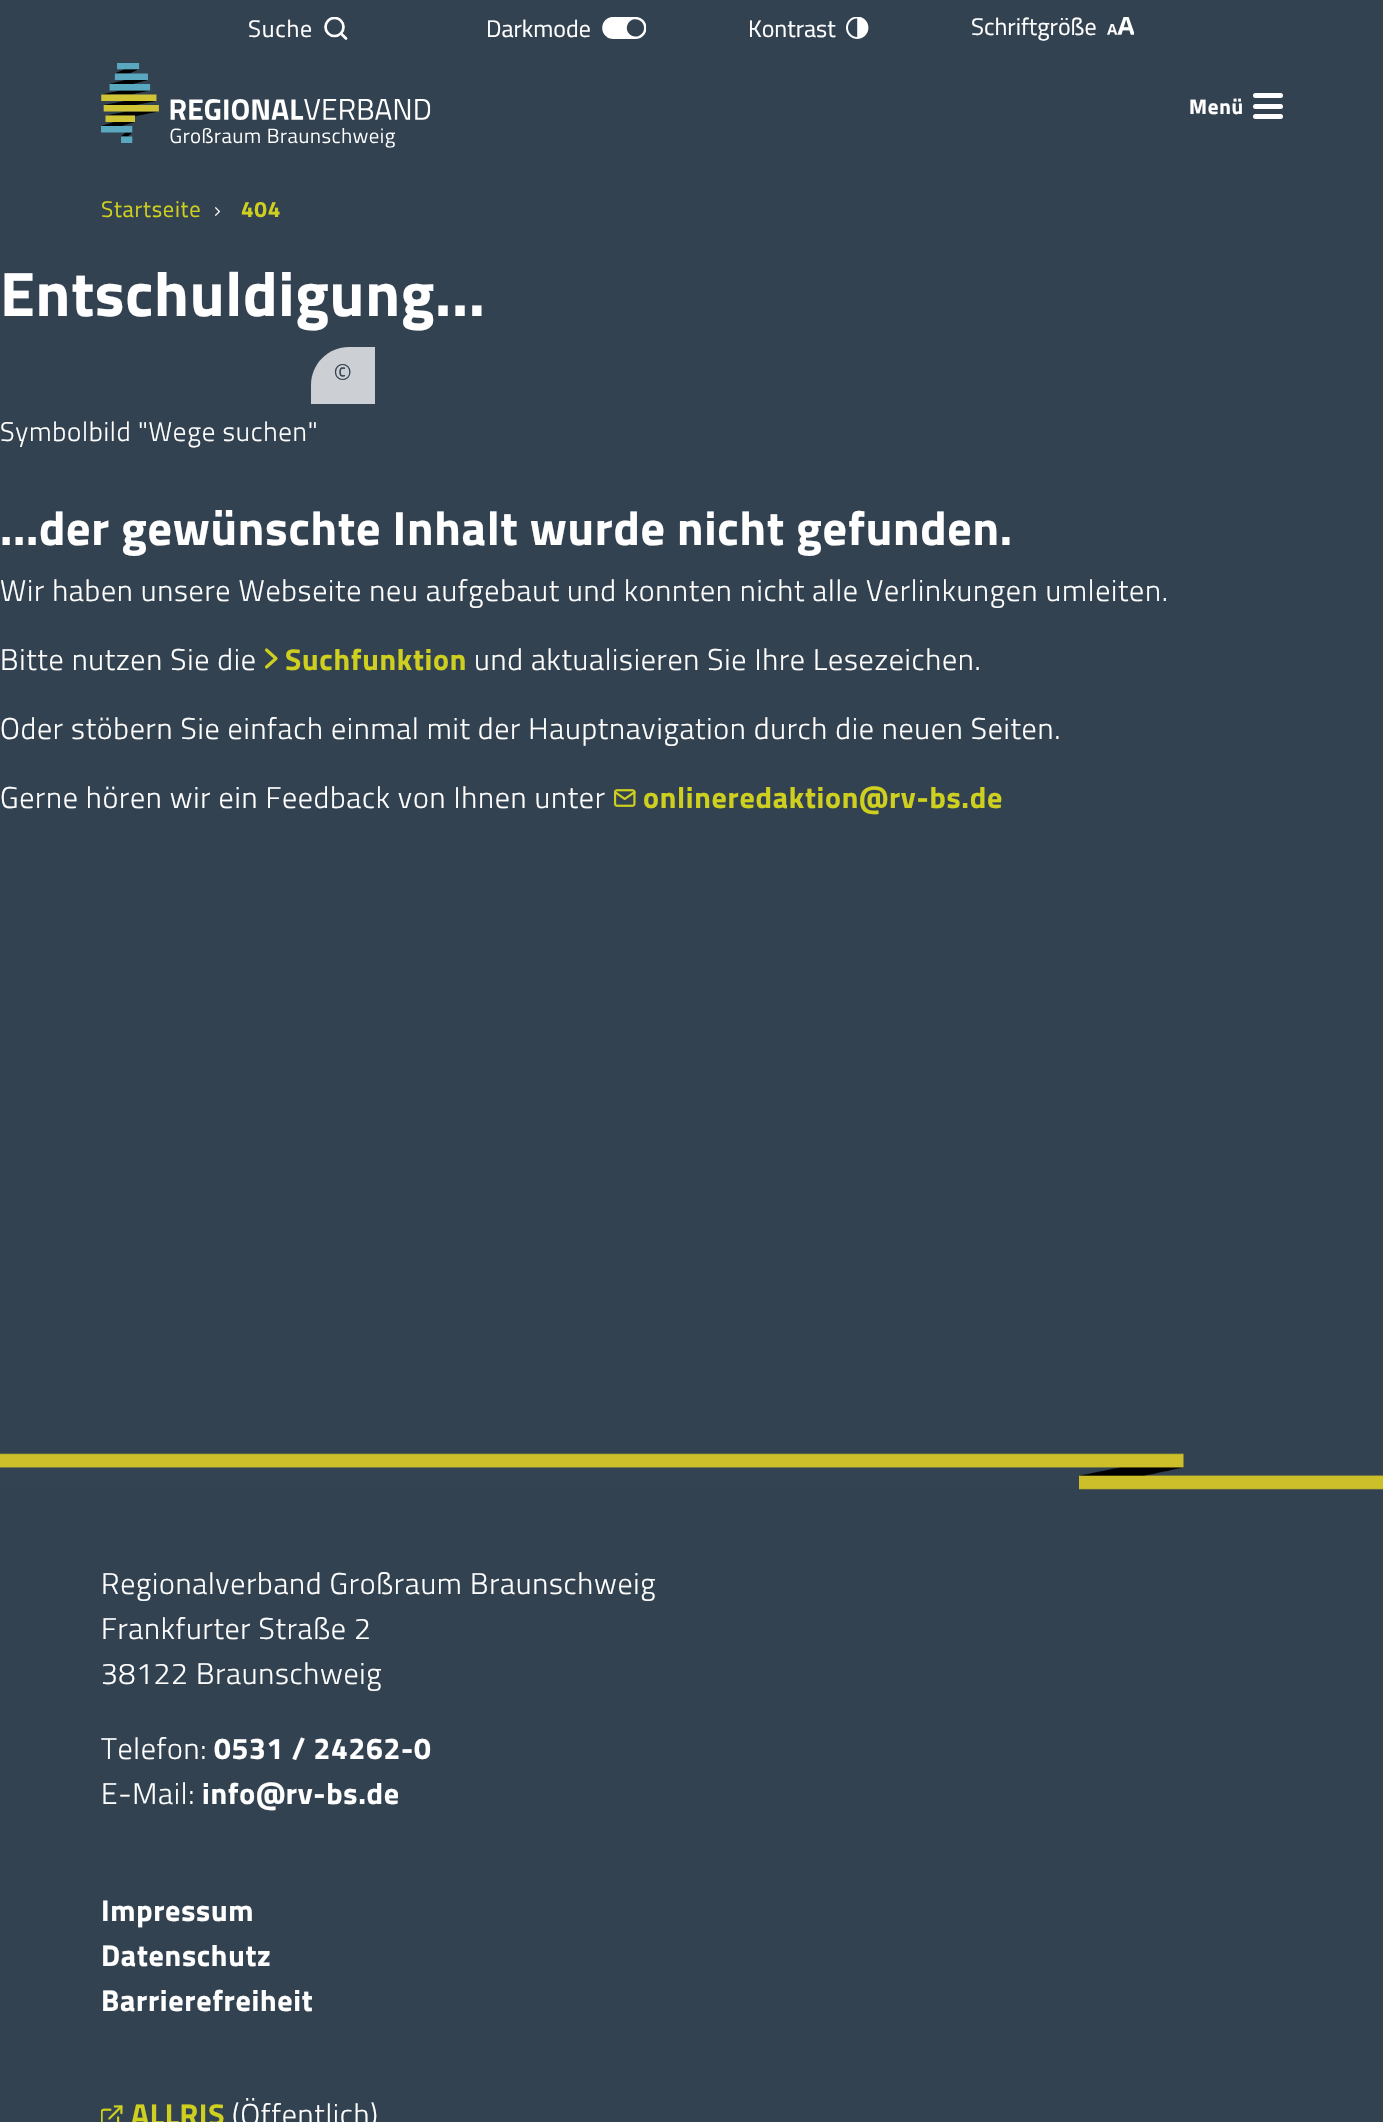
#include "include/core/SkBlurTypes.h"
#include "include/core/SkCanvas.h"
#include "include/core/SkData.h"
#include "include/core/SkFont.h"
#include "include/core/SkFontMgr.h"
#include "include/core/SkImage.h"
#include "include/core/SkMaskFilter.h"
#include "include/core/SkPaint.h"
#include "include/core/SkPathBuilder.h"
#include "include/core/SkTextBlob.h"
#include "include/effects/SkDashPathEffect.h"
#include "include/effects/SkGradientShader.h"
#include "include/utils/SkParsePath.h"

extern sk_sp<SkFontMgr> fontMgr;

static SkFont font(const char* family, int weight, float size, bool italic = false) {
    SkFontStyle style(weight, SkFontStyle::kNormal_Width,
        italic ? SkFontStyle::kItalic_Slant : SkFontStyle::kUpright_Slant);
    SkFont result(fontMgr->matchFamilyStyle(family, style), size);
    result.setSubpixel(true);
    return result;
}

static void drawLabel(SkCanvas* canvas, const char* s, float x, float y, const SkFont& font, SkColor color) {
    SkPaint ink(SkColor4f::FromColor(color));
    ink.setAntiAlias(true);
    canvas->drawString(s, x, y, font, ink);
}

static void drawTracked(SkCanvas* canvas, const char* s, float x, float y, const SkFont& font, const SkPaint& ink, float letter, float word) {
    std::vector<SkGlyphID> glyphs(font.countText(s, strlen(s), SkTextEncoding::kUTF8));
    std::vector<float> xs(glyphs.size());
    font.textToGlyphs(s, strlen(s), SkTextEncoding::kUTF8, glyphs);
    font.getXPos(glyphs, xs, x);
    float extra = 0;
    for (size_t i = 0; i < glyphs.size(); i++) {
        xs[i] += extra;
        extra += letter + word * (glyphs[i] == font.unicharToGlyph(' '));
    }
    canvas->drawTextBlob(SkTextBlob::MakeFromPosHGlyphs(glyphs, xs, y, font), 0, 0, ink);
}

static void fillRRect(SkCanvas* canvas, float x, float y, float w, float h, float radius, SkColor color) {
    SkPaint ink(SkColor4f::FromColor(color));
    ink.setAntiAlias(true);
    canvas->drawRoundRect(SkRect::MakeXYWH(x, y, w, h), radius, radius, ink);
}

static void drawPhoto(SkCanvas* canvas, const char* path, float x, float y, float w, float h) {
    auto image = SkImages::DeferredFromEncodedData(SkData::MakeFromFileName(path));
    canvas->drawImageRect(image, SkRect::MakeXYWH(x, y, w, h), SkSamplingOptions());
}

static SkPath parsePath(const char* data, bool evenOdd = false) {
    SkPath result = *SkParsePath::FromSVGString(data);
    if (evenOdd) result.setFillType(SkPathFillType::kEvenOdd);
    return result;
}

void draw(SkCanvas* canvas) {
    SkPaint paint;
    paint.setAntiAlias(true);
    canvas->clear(0xFF334251);
    SkFont font1 = font("Titillium Web", 400, 24);
    paint.setColor(0xFFFFFFFF);
    drawTracked(canvas, "Suche", 248, 37, font1, paint, 0.72f, 0);
    canvas->save();
    canvas->clipRect(SkRect::MakeXYWH(324, 17, 24, 24));
    paint.setStroke(true);
    paint.setStrokeWidth(2.7f);
    canvas->drawCircle(334.5f, 27, 9, paint);
    canvas->restore();
    paint.setStrokeCap(SkPaint::kRound_Cap);
    paint.setStrokeJoin(SkPaint::kRound_Join);
    canvas->drawPath(parsePath("M346 38.5L341 33.5"), paint);
    drawLabel(canvas, "Darkmode", 486, 37, font1, 0xFFFFFFFF);
    drawPhoto(canvas, "assets/img1.png", 602, 17, 45, 22);
    drawLabel(canvas, "Kontrast", 748, 37, font1, 0xFFFFFFFF);
    drawPhoto(canvas, "assets/img2.png", 846, 17, 23, 22);
    drawLabel(canvas, "Schriftgröße", 971, 35, font1, 0xFFFFFFFF);
    drawPhoto(canvas, "assets/img3.png", 1107, 17, 27, 18);
    drawPhoto(canvas, "assets/img4.png", 101, 63, 330, 85);
    SkFont font2 = font("Titillium Web", 700, 21);
    paint.setStroke(false);
    drawTracked(canvas, "Menü", 1189, 114, font2, paint, 0.72f, 0);
    fillRRect(canvas, 1253, 104, 30, 5, 2.5f, 0xFFFFFFFF);
    fillRRect(canvas, 1253, 93, 30, 5, 2.5f, 0xFFFFFFFF);
    fillRRect(canvas, 1253, 114, 30, 5, 2.5f, 0xFFFFFFFF);
    SkFont font3 = font("Titillium Web", 400, 22.5f);
    paint.setColor(0xFFCECF1F);
    drawTracked(canvas, "Startseite", 101, 217, font3, paint, 0.72f, 0);
    drawPhoto(canvas, "assets/img5.png", 215, 207, 5, 9);
    SkFont font4 = font("Titillium Web", 700, 22.5f);
    drawTracked(canvas, "404", 241, 217, font4, paint, 0.72f, 0);
    SkFont font5 = font("Titillium Web", 700, 63);
    paint.setColor(0xFFFFFFFF);
    drawTracked(canvas, "Entschuldigung...", 0, 316, font5, paint, 0.72f, 0);
    paint.setColor(0xFFCCD0D4);
    canvas->drawPath(parsePath("M349 347H375V404H311V385C311 364 328 347 349 347Z"), paint);
    SkFont font6 = font("Titillium Web", 300, 30);
    paint.setColor(0xFF334352);
    drawTracked(canvas, "©", 333, 385, font6, paint, 0.72f, 0);
    SkFont font7 = font("Titillium Web", 300, 27);
    paint.setColor(0xFFFFFFFF);
    drawTracked(canvas, "Symbolbild \"Wege suchen\"", 0, 441, font7, paint, 0.72f, 0);
    SkFont font8 = font("Titillium Web", 700, 48);
    drawTracked(canvas, "...der gewünschte Inhalt wurde nicht gefunden.", 0, 545, font8, paint, 0.72f, 0);
    drawTracked(canvas, "Wir haben unsere Webseite neu aufgebaut und konnten nicht alle Verlinkungen umleiten.", 0, 601, font6, paint, 0.72f, 0);
    drawTracked(canvas, "Bitte nutzen Sie die", 0, 670, font6, paint, 0.72f, 0);
    paint.setStroke(true);
    paint.setStrokeWidth(3.1f);
    paint.setColor(0xFFCECF1F);
    canvas->drawPath(parsePath("M266.5 667L276 658.5L266.5 650"), paint);
    SkFont font9 = font("Titillium Web", 700, 30);
    paint.setStroke(false);
    drawTracked(canvas, "Suchfunktion", 285, 670, font9, paint, 0.72f, 0);
    paint.setColor(0xFFFFFFFF);
    drawTracked(canvas, "und aktualisieren Sie Ihre Lesezeichen.", 474, 670, font6, paint, 0.72f, 0);
    drawTracked(canvas, "Oder stöbern Sie einfach einmal mit der Hauptnavigation durch die neuen Seiten.", 0, 739, font6, paint, 0.72f, 0);
    drawTracked(canvas, "Gerne hören wir ein Feedback von Ihnen unter", 0, 808, font6, paint, 0.72f, 0);
    drawPhoto(canvas, "assets/img6.png", 614, 789, 22, 18);
    paint.setColor(0xFFCECF1F);
    drawTracked(canvas, "onlineredaktion@rv-bs.de", 643, 808, font9, paint, 0.72f, 0);
    drawPhoto(canvas, "assets/img7.png", 0, 1453, 1383, 37);
    paint.setColor(0xFFFFFFFF);
    drawTracked(canvas, "Regionalverband Großraum Braunschweig", 101, 1594, font6, paint, 0.72f, 0);
    drawTracked(canvas, "Frankfurter Straße 2", 101, 1639, font6, paint, 0.72f, 0);
    drawTracked(canvas, "38122 Braunschweig", 101, 1684, font6, paint, 0.72f, 0);
    drawTracked(canvas, "Telefon:", 101, 1759, font6, paint, 0.72f, 0);
    drawTracked(canvas, "0531 / 24262-0", 214, 1759, font9, paint, 0.72f, 0);
    drawTracked(canvas, "E-Mail:", 101, 1804, font6, paint, 0.72f, 0);
    drawTracked(canvas, "info@rv-bs.de", 202, 1804, font9, paint, 0.72f, 0);
    drawTracked(canvas, "Impressum", 101, 1921, font9, paint, 0.72f, 0);
    drawTracked(canvas, "Datenschutz", 101, 1966, font9, paint, 0.72f, 0);
    drawTracked(canvas, "Barrierefreiheit", 101, 2011, font9, paint, 0.72f, 0);
    drawPhoto(canvas, "assets/img8.png", 101, 2105, 22, 17);
    paint.setColor(0xFFCECF1F);
    drawTracked(canvas, "ALLRIS", 131, 2125, font9, paint, 0.72f, 0);
    paint.setColor(0xFFFFFFFF);
    drawTracked(canvas, "(Öffentlich)", 232, 2125, font6, paint, 0.72f, 0);
}
